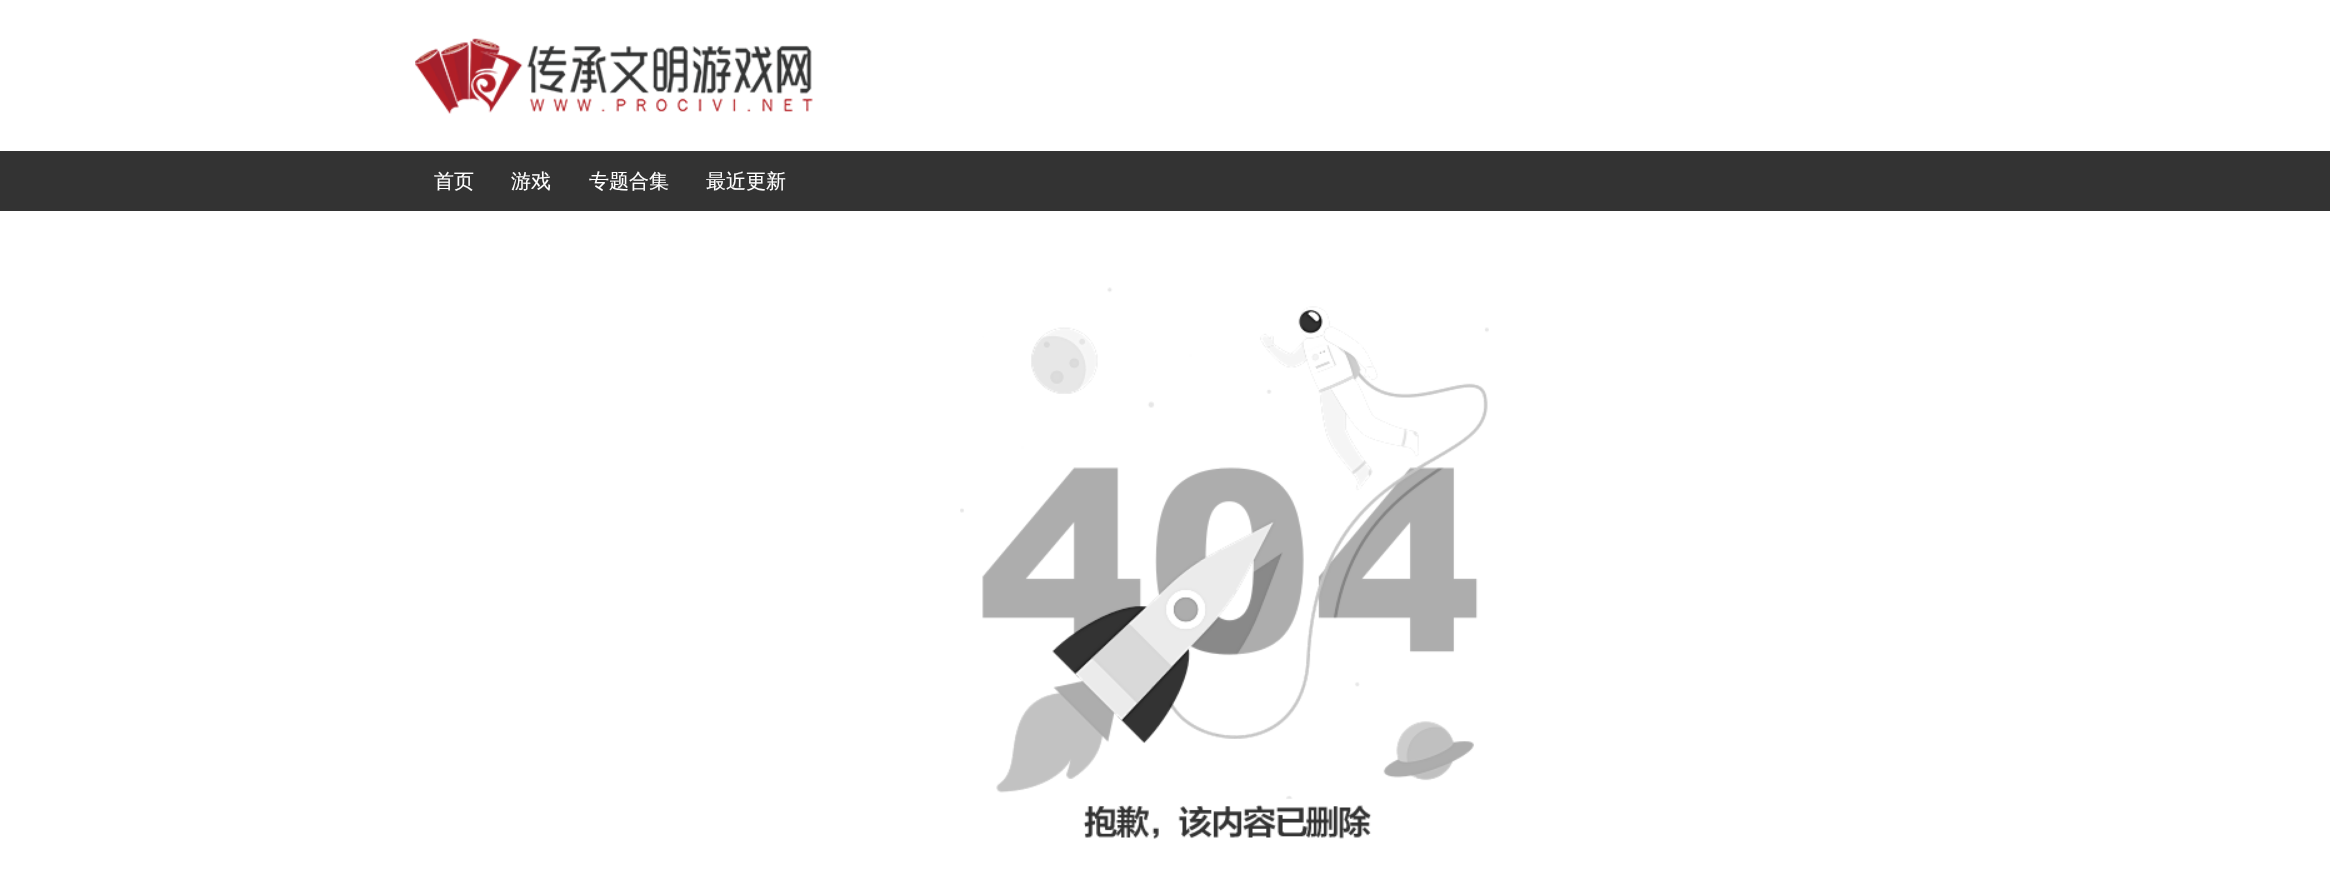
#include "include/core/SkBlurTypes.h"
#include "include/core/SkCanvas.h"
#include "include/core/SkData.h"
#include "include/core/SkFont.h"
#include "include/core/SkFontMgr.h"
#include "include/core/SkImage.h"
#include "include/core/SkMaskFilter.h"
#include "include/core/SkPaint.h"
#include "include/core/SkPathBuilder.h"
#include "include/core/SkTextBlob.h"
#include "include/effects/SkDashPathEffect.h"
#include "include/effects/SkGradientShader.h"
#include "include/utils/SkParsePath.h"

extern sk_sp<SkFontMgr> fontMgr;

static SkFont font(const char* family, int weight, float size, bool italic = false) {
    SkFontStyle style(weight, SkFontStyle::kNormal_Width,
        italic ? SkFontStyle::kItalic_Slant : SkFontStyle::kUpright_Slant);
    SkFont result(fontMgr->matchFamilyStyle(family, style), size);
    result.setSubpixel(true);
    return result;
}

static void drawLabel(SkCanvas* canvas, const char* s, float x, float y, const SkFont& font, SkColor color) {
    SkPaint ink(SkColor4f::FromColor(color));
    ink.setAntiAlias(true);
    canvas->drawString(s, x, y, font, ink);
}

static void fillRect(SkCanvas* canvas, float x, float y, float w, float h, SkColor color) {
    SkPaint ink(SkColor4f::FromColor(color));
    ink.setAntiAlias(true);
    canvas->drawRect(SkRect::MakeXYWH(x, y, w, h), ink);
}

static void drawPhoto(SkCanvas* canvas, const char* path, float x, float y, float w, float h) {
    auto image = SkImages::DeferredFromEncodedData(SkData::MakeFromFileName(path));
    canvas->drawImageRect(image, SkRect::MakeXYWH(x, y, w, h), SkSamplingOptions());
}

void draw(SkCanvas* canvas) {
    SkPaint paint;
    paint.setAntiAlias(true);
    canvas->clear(0xFFFFFFFF);
    drawPhoto(canvas, "assets/img1.png", 415, 38, 398, 76);
    fillRect(canvas, 0, 151, 2330, 60, 0xFF333333);
    SkFont font1 = font("WenQuanYi Zen Hei", 500, 20);
    drawLabel(canvas, "首页", 434, 188, font1, 0xFFFFFFFF);
    drawLabel(canvas, "游戏", 511, 188, font1, 0xFFFFFFFF);
    drawLabel(canvas, "专题合集", 589, 188, font1, 0xFFFFFFFF);
    drawLabel(canvas, "最近更新", 706, 188, font1, 0xFFFFFFFF);
    drawPhoto(canvas, "assets/img2.png", 960, 287, 529, 552);
}
